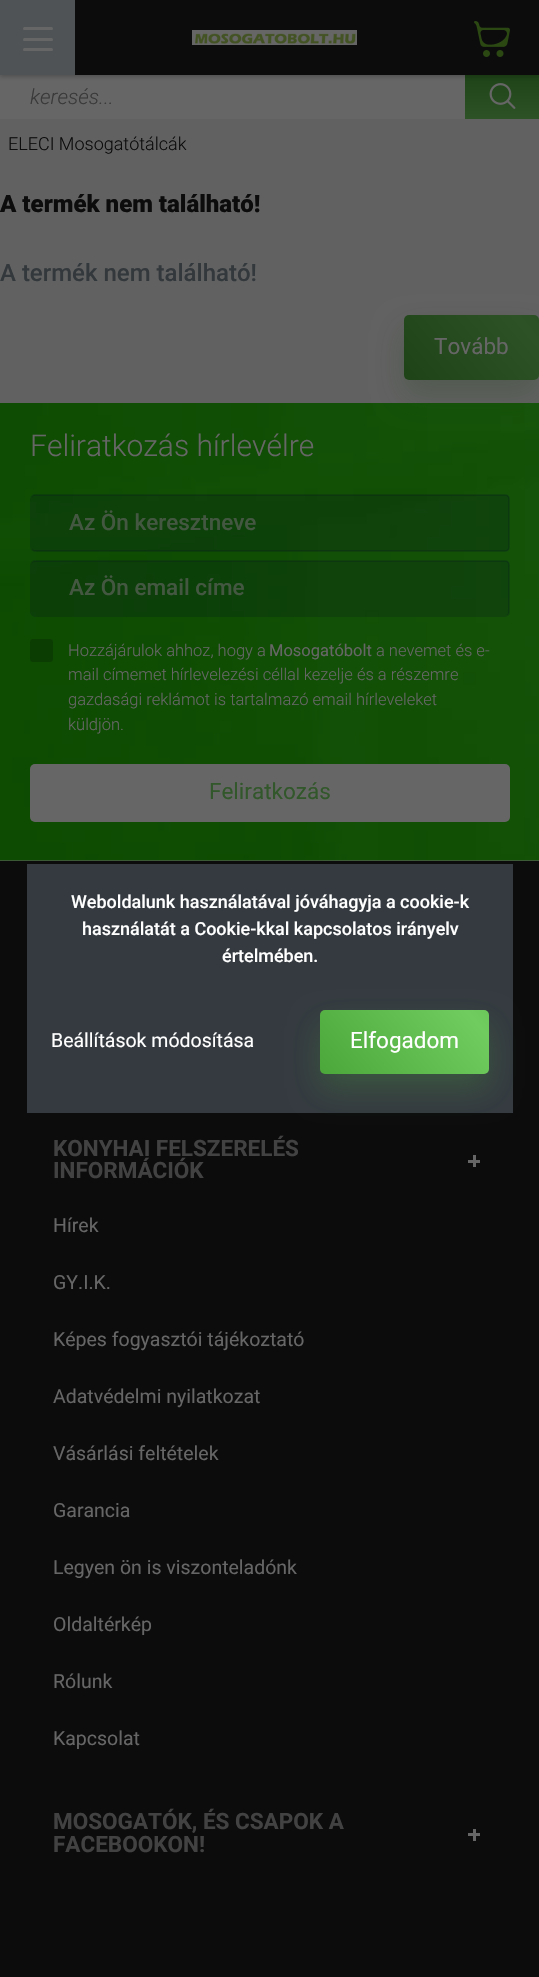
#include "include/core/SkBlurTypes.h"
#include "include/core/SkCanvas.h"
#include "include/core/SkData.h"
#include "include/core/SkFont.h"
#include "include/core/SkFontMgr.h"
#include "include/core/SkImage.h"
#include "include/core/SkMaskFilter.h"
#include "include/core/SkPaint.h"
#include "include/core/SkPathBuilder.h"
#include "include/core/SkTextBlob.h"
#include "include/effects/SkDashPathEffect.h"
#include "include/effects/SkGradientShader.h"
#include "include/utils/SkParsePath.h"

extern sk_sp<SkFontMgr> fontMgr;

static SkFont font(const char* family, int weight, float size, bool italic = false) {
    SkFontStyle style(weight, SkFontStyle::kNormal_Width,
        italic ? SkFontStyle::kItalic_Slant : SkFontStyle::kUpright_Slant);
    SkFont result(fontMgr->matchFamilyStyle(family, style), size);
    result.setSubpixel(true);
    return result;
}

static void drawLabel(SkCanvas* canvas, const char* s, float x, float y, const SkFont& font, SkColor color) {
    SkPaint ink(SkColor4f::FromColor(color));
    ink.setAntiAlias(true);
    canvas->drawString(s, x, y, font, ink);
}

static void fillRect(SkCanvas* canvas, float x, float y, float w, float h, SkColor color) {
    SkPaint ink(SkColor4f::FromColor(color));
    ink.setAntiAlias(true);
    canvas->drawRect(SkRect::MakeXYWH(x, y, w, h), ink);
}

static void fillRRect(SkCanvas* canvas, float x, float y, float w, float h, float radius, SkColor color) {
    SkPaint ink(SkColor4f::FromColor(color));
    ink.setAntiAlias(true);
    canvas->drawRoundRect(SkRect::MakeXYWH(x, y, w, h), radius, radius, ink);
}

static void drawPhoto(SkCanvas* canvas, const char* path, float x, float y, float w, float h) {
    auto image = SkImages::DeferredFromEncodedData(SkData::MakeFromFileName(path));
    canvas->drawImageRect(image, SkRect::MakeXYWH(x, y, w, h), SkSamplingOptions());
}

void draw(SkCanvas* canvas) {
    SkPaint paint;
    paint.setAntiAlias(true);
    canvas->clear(0xFF616161);
    fillRect(canvas, 0, 75, 465, 44, 0xFF666666);
    {
        const SkColor colors[] = {0xFF1E4317, 0xFF2D5226};
        const float stops[] = {0, 1};
        const SkPoint ends[] = {{503, 74}, {503, 119}};
        paint.setShader(SkGradientShader::MakeLinear(ends, colors, stops, 2, SkTileMode::kClamp));
        paint.setAlpha(255);
    }
    canvas->drawRect(SkRect::MakeXYWH(465, 75, 74, 44), paint);
    drawPhoto(canvas, "assets/img3.png", 489, 83, 27, 26);
    paint.setShader(nullptr);
    paint.setColor(0x33000000);
    paint.setMaskFilter(SkMaskFilter::MakeBlur(kNormal_SkBlurStyle, 2));
    canvas->drawRect(SkRect::MakeXYWH(0, 2, 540, 75), paint);
    paint.setMaskFilter(nullptr);
    fillRect(canvas, 75, 0, 464, 75, 0xFF0C0C0D);
    fillRect(canvas, 0, 0, 75, 75, 0xFF4F5356);
    fillRRect(canvas, 23, 27, 30, 3, 1.5f, 0xFF666666);
    fillRRect(canvas, 23, 38, 30, 3, 1.5f, 0xFF666666);
    fillRRect(canvas, 23, 48, 30, 3, 1.5f, 0xFF666666);
    drawPhoto(canvas, "assets/img1.png", 192, 30, 165, 15);
    drawPhoto(canvas, "assets/img2.png", 474, 21, 36, 36);
    SkFont font1 = font("Roboto", 300, 21, true);
    drawLabel(canvas, "keresés...", 30, 104, font1, 0xFF393939);
    SkFont font2 = font("Roboto", 300, 18);
    drawLabel(canvas, "ELECI Mosogatótálcák", 8, 150, font2, 0xFF0D0C0C);
    SkFont font3 = font("Roboto", 900, 24);
    drawLabel(canvas, "A termék nem található!", 0, 212, font3, 0xFF0D0C0C);
    SkFont font4 = font("Roboto", 500, 24);
    drawLabel(canvas, "A termék nem található!", 0, 281, font4, 0xFF33383C);
    fillRect(canvas, 0, 860, 539, 1, 0xFF666666);
    drawPhoto(canvas, "assets/img4.png", 0, 403, 539, 458);
    paint.setColor(0x401E4317);
    paint.setMaskFilter(SkMaskFilter::MakeBlur(kNormal_SkBlurStyle, 15));
    canvas->drawRoundRect(SkRect::MakeXYWH(404, 330, 135, 65), 5, 5, paint);
    paint.setMaskFilter(nullptr);
    {
        const SkColor colors[] = {0xFF1E4317, 0xFF2D5226, 0xFF1E4317};
        const float stops[] = {0, 0.51f, 1};
        const SkPoint ends[] = {{443, 427}, {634, 267}};
        paint.setShader(SkGradientShader::MakeLinear(ends, colors, stops, 3, SkTileMode::kClamp));
        paint.setAlpha(255);
    }
    canvas->drawRoundRect(SkRect::MakeXYWH(404, 315, 135, 65), 5, 5, paint);
    SkFont font5 = font("Roboto", 400, 22.5f);
    drawLabel(canvas, "Tovább", 434, 354, font5, 0xFF666666);
    SkFont font6 = font("Roboto", 300, 30);
    drawLabel(canvas, "Feliratkozás hírlevélre", 30, 456, font6, 0xFF666666);
    fillRRect(canvas, 32, 495, 477, 56, 3, 0x33020A20);
    paint.setStroke(true);
    paint.setStrokeWidth(2);
    paint.setShader(nullptr);
    paint.setColor(0x33020A20);
    canvas->drawRoundRect(SkRect::MakeXYWH(31, 495, 478, 56), 4, 4, paint);
    SkFont font7 = font("Roboto", 500, 22.5f);
    drawLabel(canvas, "Az Ön keresztneve", 69, 530, font7, 0xFF435741);
    fillRRect(canvas, 32, 561, 477, 54, 3, 0x33020A20);
    canvas->drawRoundRect(SkRect::MakeXYWH(31, 561, 478, 55), 4, 4, paint);
    drawLabel(canvas, "Az Ön email címe", 69, 595, font7, 0xFF435741);
    fillRRect(canvas, 30, 639, 23, 23, 3, 0xFF0B3C02);
    SkFont font8 = font("Roboto", 300, 16.5f);
    drawLabel(canvas, "Hozzájárulok ahhoz, hogy a", 68, 656, font8, 0xFF666666);
    SkFont font9 = font("Roboto", 400, 16.5f);
    drawLabel(canvas, "Mosogatóbolt", 269, 656, font9, 0xFF666666);
    drawLabel(canvas, "a nevemet és e-", 376, 656, font8, 0xFF666666);
    drawLabel(canvas, "mail címemet hírlevelezési céllal kezelje és a részemre", 68, 680, font8, 0xFF666666);
    drawLabel(canvas, "gazdasági reklámot is tartalmazó email hírleveleket", 68, 705, font8, 0xFF666666);
    drawLabel(canvas, "küldjön.", 68, 730, font8, 0xFF666666);
    fillRRect(canvas, 30, 764, 480, 58, 5, 0xFF666666);
    drawLabel(canvas, "Feliratkozás", 209, 799, font5, 0xFF32572B);
    fillRect(canvas, 0, 861, 539, 1116, 0xFF0C0C0D);
    SkFont font10 = font("Roboto", 700, 22.5f);
    drawLabel(canvas, "KONYHAI FELSZERELÉS", 53, 1156, font10, 0xFF424242);
    drawLabel(canvas, "INFORMÁCIÓK", 53, 1178, font10, 0xFF424242);
    fillRect(canvas, 473, 1155, 3, 12, 0xFF666666);
    fillRect(canvas, 468, 1160, 12, 3, 0xFF666666);
    SkFont font11 = font("Roboto", 400, 19.5f);
    drawLabel(canvas, "Hírek", 53, 1232, font11, 0xFF666666);
    drawLabel(canvas, "GY.I.K.", 53, 1289, font11, 0xFF666666);
    drawLabel(canvas, "Képes fogyasztói tájékoztató", 53, 1346, font11, 0xFF666666);
    drawLabel(canvas, "Adatvédelmi nyilatkozat", 53, 1403, font11, 0xFF666666);
    drawLabel(canvas, "Vásárlási feltételek", 53, 1460, font11, 0xFF666666);
    drawLabel(canvas, "Garancia", 53, 1517, font11, 0xFF666666);
    drawLabel(canvas, "Legyen ön is viszonteladónk", 53, 1574, font11, 0xFF666666);
    drawLabel(canvas, "Oldaltérkép", 53, 1631, font11, 0xFF666666);
    drawLabel(canvas, "Rólunk", 53, 1688, font11, 0xFF666666);
    drawLabel(canvas, "Kapcsolat", 53, 1745, font11, 0xFF666666);
    drawLabel(canvas, "MOSOGATÓK, ÉS CSAPOK A", 53, 1829, font10, 0xFF424242);
    drawLabel(canvas, "FACEBOOKON!", 53, 1852, font10, 0xFF424242);
    fillRect(canvas, 473, 1829, 3, 12, 0xFF666666);
    fillRect(canvas, 468, 1833, 12, 3, 0xFF666666);
    fillRect(canvas, 27, 864, 486, 249, 0xFF343A40);
    SkFont font12 = font("Roboto", 500, 18);
    drawLabel(canvas, "Weboldalunk használatával jóváhagyja a cookie-k", 71, 908, font12, 0xFFFFFFFF);
    drawLabel(canvas, "használatát a Cookie-kkal kapcsolatos irányelv", 82, 935, font12, 0xFFFFFFFF);
    drawLabel(canvas, "értelmében.", 222, 962, font12, 0xFFFFFFFF);
    drawLabel(canvas, "Beállítások módosítása", 51, 1047, font11, 0xFFFFFFFF);
    paint.setStroke(false);
    paint.setColor(0x404CA73A);
    paint.setMaskFilter(SkMaskFilter::MakeBlur(kNormal_SkBlurStyle, 15));
    canvas->drawRoundRect(SkRect::MakeXYWH(320, 1025, 169, 64), 5, 5, paint);
    paint.setMaskFilter(nullptr);
    {
        const SkColor colors[] = {0xFF4CA73A, 0xFF71CC5F, 0xFF4CA73A};
        const float stops[] = {0, 0.51f, 1};
        const SkPoint ends[] = {{374, 1139}, {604, 945}};
        paint.setShader(SkGradientShader::MakeLinear(ends, colors, stops, 3, SkTileMode::kClamp));
        paint.setAlpha(255);
    }
    canvas->drawRoundRect(SkRect::MakeXYWH(320, 1010, 169, 64), 5, 5, paint);
    drawLabel(canvas, "Elfogadom", 350, 1048, font5, 0xFFFFFFFF);
}
